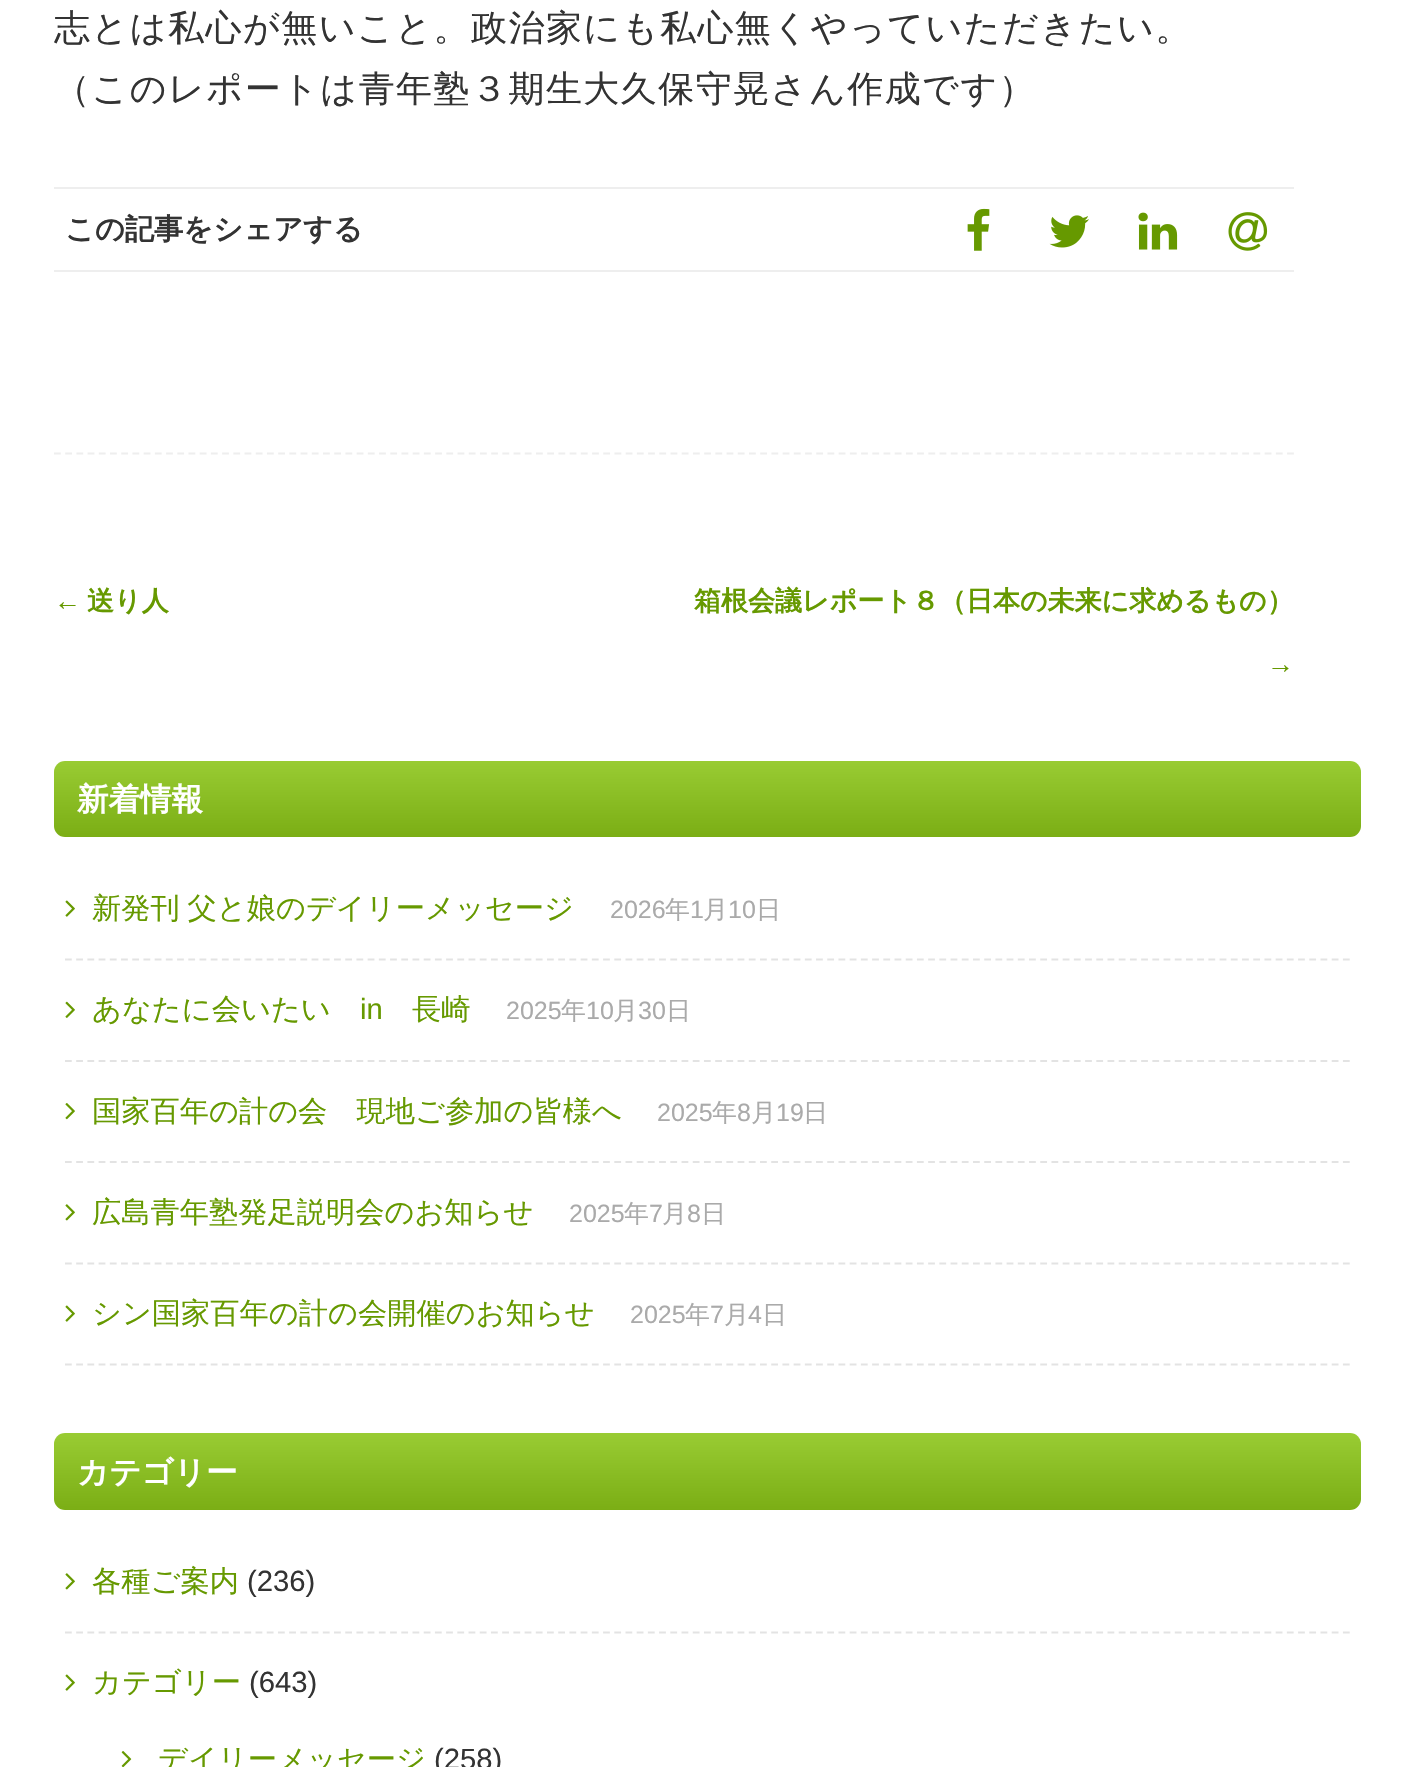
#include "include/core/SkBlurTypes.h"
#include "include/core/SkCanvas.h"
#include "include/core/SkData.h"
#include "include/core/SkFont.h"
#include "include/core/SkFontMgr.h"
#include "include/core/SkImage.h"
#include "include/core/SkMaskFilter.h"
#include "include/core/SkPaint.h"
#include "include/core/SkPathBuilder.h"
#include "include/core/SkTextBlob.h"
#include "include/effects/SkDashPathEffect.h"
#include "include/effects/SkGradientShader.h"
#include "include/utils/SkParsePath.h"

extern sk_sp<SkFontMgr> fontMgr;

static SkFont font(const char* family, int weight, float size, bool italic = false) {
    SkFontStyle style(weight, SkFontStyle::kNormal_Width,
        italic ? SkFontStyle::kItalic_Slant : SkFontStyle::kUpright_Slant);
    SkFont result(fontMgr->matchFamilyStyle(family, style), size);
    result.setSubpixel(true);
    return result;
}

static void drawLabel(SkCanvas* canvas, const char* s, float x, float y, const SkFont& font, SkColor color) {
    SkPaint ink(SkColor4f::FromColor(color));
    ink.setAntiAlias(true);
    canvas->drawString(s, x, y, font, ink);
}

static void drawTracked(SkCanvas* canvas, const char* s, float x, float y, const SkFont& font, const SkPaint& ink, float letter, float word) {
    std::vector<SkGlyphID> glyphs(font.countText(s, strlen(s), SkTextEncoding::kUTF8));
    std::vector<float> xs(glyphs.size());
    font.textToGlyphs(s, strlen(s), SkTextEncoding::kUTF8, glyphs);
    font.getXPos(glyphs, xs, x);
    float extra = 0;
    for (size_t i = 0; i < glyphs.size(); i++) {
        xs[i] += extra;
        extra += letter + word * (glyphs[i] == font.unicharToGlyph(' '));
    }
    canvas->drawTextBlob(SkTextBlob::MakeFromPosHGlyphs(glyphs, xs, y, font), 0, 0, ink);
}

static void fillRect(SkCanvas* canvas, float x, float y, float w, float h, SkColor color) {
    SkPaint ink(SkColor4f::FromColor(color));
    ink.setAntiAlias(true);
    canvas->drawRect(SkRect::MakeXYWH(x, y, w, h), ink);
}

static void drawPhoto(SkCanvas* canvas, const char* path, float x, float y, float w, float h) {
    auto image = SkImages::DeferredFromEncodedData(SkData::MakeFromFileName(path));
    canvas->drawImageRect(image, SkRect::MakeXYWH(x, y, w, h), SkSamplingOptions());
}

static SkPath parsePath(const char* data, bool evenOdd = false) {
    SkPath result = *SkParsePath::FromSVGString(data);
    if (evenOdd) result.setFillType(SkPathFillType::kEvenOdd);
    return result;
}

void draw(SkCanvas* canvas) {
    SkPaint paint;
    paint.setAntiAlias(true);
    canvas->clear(0xFFFFFFFF);
    SkFont font1 = font("WenQuanYi Zen Hei", 500, 36);
    paint.setColor(0xFF333333);
    drawTracked(canvas, "志とは私心が無いこと。政治家にも私心無くやっていただきたい。", 54, 40, font1, paint, 1.45f, 0);
    drawTracked(canvas, "（このレポートは青年塾３期生大久保守晃さん作成です）", 54, 101, font1, paint, 1.45f, 0);
    fillRect(canvas, 54, 187, 1240, 2, 0xFFEEEEEE);
    fillRect(canvas, 54, 270, 1240, 2, 0xFFEEEEEE);
    SkFont font2 = font("WenQuanYi Zen Hei", 700, 29.25f);
    drawLabel(canvas, "この記事をシェアする", 65, 239, font2, 0xFF333333);
    drawPhoto(canvas, "assets/img1.png", 967, 208, 23, 43);
    drawPhoto(canvas, "assets/img2.png", 1049, 215, 40, 33);
    drawPhoto(canvas, "assets/img3.png", 1138, 212, 40, 38);
    drawPhoto(canvas, "assets/img4.png", 1228, 212, 40, 39);
    paint.setStroke(true);
    paint.setStrokeWidth(2.2f);
    paint.setColor(0xFFEEEEEE);
    paint.setPathEffect(SkDashPathEffect::Make({{6.75f, 4.46f}}, 0));
    canvas->drawPath(parsePath("M54 453.5H1294"), paint);
    paint.setPathEffect(nullptr);
    SkFont font3 = font("Liberation Sans", 700, 27);
    drawLabel(canvas, "←", 54, 610, font3, 0xFF669900);
    SkFont font4 = font("WenQuanYi Zen Hei", 700, 27);
    drawLabel(canvas, "送り人", 87, 610, font4, 0xFF669900);
    drawLabel(canvas, "箱根会議レポート８（日本の未来に求めるもの）", 694, 610, font4, 0xFF669900);
    drawLabel(canvas, "→", 1267, 673, font3, 0xFF669900);
    paint.setStroke(false);
    {
        const SkColor colors[] = {0xFF99CC33, 0xFF7BAE15};
        const float stops[] = {0, 1};
        const SkPoint ends[] = {{708, 760}, {708, 837}};
        paint.setShader(SkGradientShader::MakeLinear(ends, colors, stops, 2, SkTileMode::kClamp));
        paint.setAlpha(255);
    }
    canvas->drawRoundRect(SkRect::MakeXYWH(54, 761, 1307, 76), 11, 11, paint);
    SkFont font5 = font("WenQuanYi Zen Hei", 700, 31.5f);
    drawLabel(canvas, "新着情報", 77, 810, font5, 0xFFFFFFFF);
    paint.setStroke(true);
    paint.setShader(nullptr);
    paint.setColor(0xFFE3E3E3);
    paint.setPathEffect(SkDashPathEffect::Make({{6.75f, 4.46f}}, 0));
    canvas->drawPath(parsePath("M65 959.5H1350"), paint);
    paint.setPathEffect(nullptr);
    drawPhoto(canvas, "assets/img5.png", 65, 900, 10, 17);
    SkFont font6 = font("WenQuanYi Zen Hei", 500, 29.25f);
    paint.setStroke(false);
    paint.setColor(0xFF669900);
    drawTracked(canvas, "新発刊 父と娘のデイリーメッセージ", 92, 918, font6, paint, 0, -1);
    SkFont font7 = font("Liberation Sans", 400, 25);
    drawLabel(canvas, "2026", 610, 918, font7, 0xFFAAAAAA);
    SkFont font8 = font("WenQuanYi Zen Hei", 500, 25);
    drawLabel(canvas, "年", 665, 918, font8, 0xFFAAAAAA);
    drawLabel(canvas, "1", 690, 918, font7, 0xFFAAAAAA);
    drawLabel(canvas, "月", 703, 918, font8, 0xFFAAAAAA);
    drawLabel(canvas, "10", 728, 918, font7, 0xFFAAAAAA);
    drawLabel(canvas, "日", 756, 918, font8, 0xFFAAAAAA);
    paint.setStroke(true);
    paint.setColor(0xFFE3E3E3);
    paint.setPathEffect(SkDashPathEffect::Make({{6.75f, 4.46f}}, 0));
    canvas->drawPath(parsePath("M65 1061H1350"), paint);
    paint.setPathEffect(nullptr);
    drawPhoto(canvas, "assets/img6.png", 65, 1001, 10, 17);
    drawLabel(canvas, "あなたに会いたい", 92, 1019, font6, 0xFF669900);
    SkFont font9 = font("Liberation Sans", 400, 29.25f);
    drawLabel(canvas, "in", 360, 1019, font9, 0xFF669900);
    drawLabel(canvas, "長崎", 412, 1019, font6, 0xFF669900);
    drawLabel(canvas, "2025", 506, 1019, font7, 0xFFAAAAAA);
    drawLabel(canvas, "年", 561, 1019, font8, 0xFFAAAAAA);
    drawLabel(canvas, "10", 586, 1019, font7, 0xFFAAAAAA);
    drawLabel(canvas, "月", 613, 1019, font8, 0xFFAAAAAA);
    drawLabel(canvas, "30", 638, 1019, font7, 0xFFAAAAAA);
    drawLabel(canvas, "日", 666, 1019, font8, 0xFFAAAAAA);
    paint.setPathEffect(SkDashPathEffect::Make({{6.75f, 4.46f}}, 0));
    canvas->drawPath(parsePath("M65 1162H1350"), paint);
    paint.setPathEffect(nullptr);
    drawPhoto(canvas, "assets/img7.png", 65, 1103, 10, 17);
    drawLabel(canvas, "国家百年の計の会　現地ご参加の皆様へ", 92, 1121, font6, 0xFF669900);
    drawLabel(canvas, "2025", 657, 1121, font7, 0xFFAAAAAA);
    drawLabel(canvas, "年", 712, 1121, font8, 0xFFAAAAAA);
    drawLabel(canvas, "8", 737, 1121, font7, 0xFFAAAAAA);
    drawLabel(canvas, "月", 751, 1121, font8, 0xFFAAAAAA);
    drawLabel(canvas, "19", 776, 1121, font7, 0xFFAAAAAA);
    drawLabel(canvas, "日", 803, 1121, font8, 0xFFAAAAAA);
    paint.setPathEffect(SkDashPathEffect::Make({{6.75f, 4.46f}}, 0));
    canvas->drawPath(parsePath("M65 1263.5H1350"), paint);
    paint.setPathEffect(nullptr);
    drawPhoto(canvas, "assets/img8.png", 65, 1204, 10, 17);
    drawLabel(canvas, "広島青年塾発足説明会のお知らせ", 92, 1222, font6, 0xFF669900);
    drawLabel(canvas, "2025", 569, 1222, font7, 0xFFAAAAAA);
    drawLabel(canvas, "年", 624, 1222, font8, 0xFFAAAAAA);
    drawLabel(canvas, "7", 649, 1222, font7, 0xFFAAAAAA);
    drawLabel(canvas, "月", 662, 1222, font8, 0xFFAAAAAA);
    drawLabel(canvas, "8", 687, 1222, font7, 0xFFAAAAAA);
    drawLabel(canvas, "日", 701, 1222, font8, 0xFFAAAAAA);
    paint.setPathEffect(SkDashPathEffect::Make({{6.75f, 4.46f}}, 0));
    canvas->drawPath(parsePath("M65 1364.5H1350"), paint);
    paint.setPathEffect(nullptr);
    drawPhoto(canvas, "assets/img5.png", 65, 1305, 10, 17);
    drawLabel(canvas, "シン国家百年の計の会開催のお知らせ", 92, 1323, font6, 0xFF669900);
    drawLabel(canvas, "2025", 630, 1323, font7, 0xFFAAAAAA);
    drawLabel(canvas, "年", 685, 1323, font8, 0xFFAAAAAA);
    drawLabel(canvas, "7", 710, 1323, font7, 0xFFAAAAAA);
    drawLabel(canvas, "月", 724, 1323, font8, 0xFFAAAAAA);
    drawLabel(canvas, "4", 748, 1323, font7, 0xFFAAAAAA);
    drawLabel(canvas, "日", 762, 1323, font8, 0xFFAAAAAA);
    paint.setStroke(false);
    {
        const SkColor colors[] = {0xFF99CC33, 0xFF7BAE15};
        const float stops[] = {0, 1};
        const SkPoint ends[] = {{708, 1433}, {708, 1510}};
        paint.setShader(SkGradientShader::MakeLinear(ends, colors, stops, 2, SkTileMode::kClamp));
        paint.setAlpha(255);
    }
    canvas->drawRoundRect(SkRect::MakeXYWH(54, 1433, 1307, 77), 11, 11, paint);
    drawLabel(canvas, "カテゴリー", 77, 1483, font5, 0xFFFFFFFF);
    paint.setStroke(true);
    paint.setShader(nullptr);
    paint.setColor(0xFFE3E3E3);
    paint.setPathEffect(SkDashPathEffect::Make({{6.75f, 4.46f}}, 0));
    canvas->drawPath(parsePath("M65 1632.5H1350"), paint);
    paint.setPathEffect(nullptr);
    drawPhoto(canvas, "assets/img8.png", 65, 1573, 10, 17);
    drawLabel(canvas, "各種ご案内", 92, 1591, font6, 0xFF669900);
    drawLabel(canvas, "(236)", 247, 1591, font9, 0xFF333333);
    drawPhoto(canvas, "assets/img5.png", 65, 1674, 10, 17);
    drawLabel(canvas, "カテゴリー", 92, 1692, font6, 0xFF669900);
    drawLabel(canvas, "(643)", 249, 1692, font9, 0xFF333333);
    drawPhoto(canvas, "assets/img9.png", 121, 1751, 11, 16);
    drawLabel(canvas, "デイリーメッセージ", 158, 1769, font6, 0xFF669900);
    drawLabel(canvas, "(258)", 434, 1769, font9, 0xFF333333);
}
